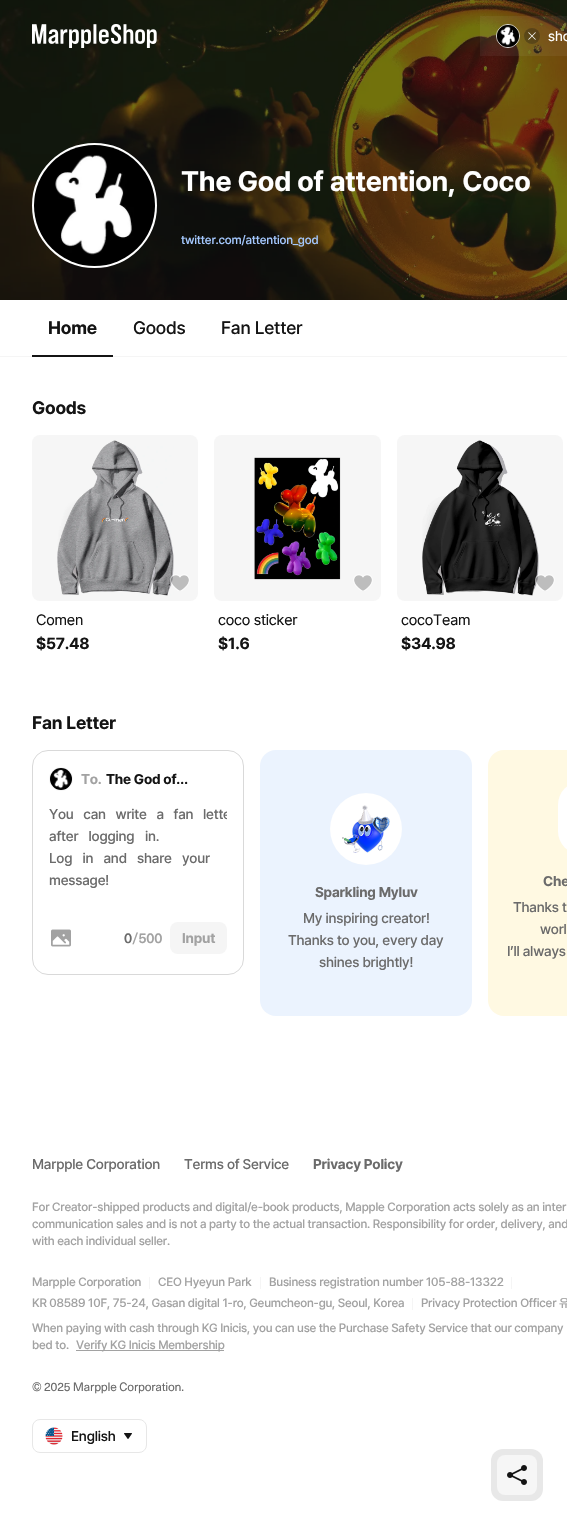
#include "include/core/SkBlurTypes.h"
#include "include/core/SkCanvas.h"
#include "include/core/SkData.h"
#include "include/core/SkFont.h"
#include "include/core/SkFontMgr.h"
#include "include/core/SkImage.h"
#include "include/core/SkMaskFilter.h"
#include "include/core/SkPaint.h"
#include "include/core/SkPathBuilder.h"
#include "include/core/SkTextBlob.h"
#include "include/effects/SkDashPathEffect.h"
#include "include/effects/SkGradientShader.h"
#include "include/utils/SkParsePath.h"

extern sk_sp<SkFontMgr> fontMgr;

static SkFont font(const char* family, int weight, float size, bool italic = false) {
    SkFontStyle style(weight, SkFontStyle::kNormal_Width,
        italic ? SkFontStyle::kItalic_Slant : SkFontStyle::kUpright_Slant);
    SkFont result(fontMgr->matchFamilyStyle(family, style), size);
    result.setSubpixel(true);
    return result;
}

static void drawLabel(SkCanvas* canvas, const char* s, float x, float y, const SkFont& font, SkColor color) {
    SkPaint ink(SkColor4f::FromColor(color));
    ink.setAntiAlias(true);
    canvas->drawString(s, x, y, font, ink);
}

static void drawTracked(SkCanvas* canvas, const char* s, float x, float y, const SkFont& font, const SkPaint& ink, float letter, float word) {
    std::vector<SkGlyphID> glyphs(font.countText(s, strlen(s), SkTextEncoding::kUTF8));
    std::vector<float> xs(glyphs.size());
    font.textToGlyphs(s, strlen(s), SkTextEncoding::kUTF8, glyphs);
    font.getXPos(glyphs, xs, x);
    float extra = 0;
    for (size_t i = 0; i < glyphs.size(); i++) {
        xs[i] += extra;
        extra += letter + word * (glyphs[i] == font.unicharToGlyph(' '));
    }
    canvas->drawTextBlob(SkTextBlob::MakeFromPosHGlyphs(glyphs, xs, y, font), 0, 0, ink);
}

static void fillRect(SkCanvas* canvas, float x, float y, float w, float h, SkColor color) {
    SkPaint ink(SkColor4f::FromColor(color));
    ink.setAntiAlias(true);
    canvas->drawRect(SkRect::MakeXYWH(x, y, w, h), ink);
}

static void fillRRect(SkCanvas* canvas, float x, float y, float w, float h, float radius, SkColor color) {
    SkPaint ink(SkColor4f::FromColor(color));
    ink.setAntiAlias(true);
    canvas->drawRoundRect(SkRect::MakeXYWH(x, y, w, h), radius, radius, ink);
}

static void drawPhoto(SkCanvas* canvas, const char* path, float x, float y, float w, float h) {
    auto image = SkImages::DeferredFromEncodedData(SkData::MakeFromFileName(path));
    canvas->drawImageRect(image, SkRect::MakeXYWH(x, y, w, h), SkSamplingOptions());
}

void draw(SkCanvas* canvas) {
    SkPaint paint;
    paint.setAntiAlias(true);
    canvas->clear(0xFFFFFFFF);
    drawPhoto(canvas, "assets/img4.png", 0, 0, 567, 300);
    drawPhoto(canvas, "assets/img1.png", 32, 24, 125, 24);
    fillRect(canvas, 480, 16, 87, 40, 0x0DFFFFFF);
    paint.setStroke(true);
    paint.setStrokeWidth(1);
    paint.setColor(0xFFD9D9D9);
    canvas->drawCircle(508, 36, 11.5f, paint);
    drawPhoto(canvas, "assets/img2.png", 497, 25, 22, 22);
    paint.setStroke(false);
    paint.setColor(0x4D141414);
    canvas->drawCircle(532, 36, 8, paint);
    drawPhoto(canvas, "assets/img3.png", 528, 32, 8, 8);
    SkFont font1 = font("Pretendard", 400, 14);
    drawLabel(canvas, "sho", 548, 41, font1, 0xFFFFFFFF);
    paint.setColor(0xFFFFFFFF);
    canvas->drawCircle(94.5f, 205.5f, 61.5f, paint);
    paint.setStroke(true);
    paint.setStrokeWidth(2);
    canvas->drawCircle(94.5f, 205.5f, 61.5f, paint);
    drawPhoto(canvas, "assets/img5.png", 34, 145, 121, 121);
    SkFont font2 = font("Pretendard", 700, 28);
    paint.setStroke(false);
    drawTracked(canvas, "The God of attention, Coco", 181, 191, font2, paint, -0.2f, 0);
    SkFont font3 = font("Pretendard", 500, 12);
    paint.setColor(0xFFA4C8FF);
    drawTracked(canvas, "twitter.com/attention_god", 181, 244, font3, paint, -0.2f, 0);
    fillRect(canvas, 0, 356, 567, 1, 0xFFF5F5F5);
    SkFont font4 = font("Pretendard", 700, 18);
    paint.setColor(0xFF141414);
    drawTracked(canvas, "Home", 48, 334, font4, paint, -0.2f, 0);
    fillRect(canvas, 32, 355, 81, 2, 0xFF141414);
    SkFont font5 = font("Pretendard", 500, 18);
    drawTracked(canvas, "Goods", 133, 334, font5, paint, -0.2f, 0);
    drawTracked(canvas, "Fan Letter", 221, 334, font5, paint, -0.2f, 0);
    drawTracked(canvas, "Goods", 32, 414, font4, paint, -0.2f, 0);
    fillRRect(canvas, 32, 435, 166, 166, 8, 0xFFF6F6F6);
    drawPhoto(canvas, "assets/img6.png", 57, 440, 117, 156);
    drawPhoto(canvas, "assets/img7.png", 170, 574, 20, 17);
    SkFont font6 = font("Pretendard", 400, 15);
    drawTracked(canvas, "Comen", 36, 625, font6, paint, -0.2f, 0);
    SkFont font7 = font("Pretendard", 700, 16);
    drawTracked(canvas, "$57.48", 36, 649, font7, paint, -0.2f, 0);
    fillRRect(canvas, 214, 435, 167, 166, 8, 0xFFF6F6F6);
    drawPhoto(canvas, "assets/img8.png", 254, 457, 87, 123);
    drawPhoto(canvas, "assets/img9.png", 353, 574, 20, 17);
    drawTracked(canvas, "coco sticker", 218, 625, font6, paint, -0.2f, 0);
    drawTracked(canvas, "$1.6", 218, 649, font7, paint, -0.2f, 0);
    fillRRect(canvas, 397, 435, 166, 166, 8, 0xFFF6F6F6);
    drawPhoto(canvas, "assets/img10.png", 422, 440, 117, 156);
    drawPhoto(canvas, "assets/img11.png", 535, 574, 20, 17);
    drawTracked(canvas, "cocoTeam", 401, 625, font6, paint, -0.2f, 0);
    drawTracked(canvas, "$34.98", 401, 649, font7, paint, -0.2f, 0);
    drawTracked(canvas, "Fan Letter", 32, 729, font4, paint, -0.2f, 0);
    paint.setStroke(true);
    paint.setStrokeWidth(1);
    paint.setColor(0xFFD9D9D9);
    canvas->drawRoundRect(SkRect::MakeXYWH(32.5f, 750.5f, 211, 224), 15.5f, 15.5f, paint);
    paint.setColor(0xFFF5F5F5);
    canvas->drawCircle(61, 779, 11.5f, paint);
    drawPhoto(canvas, "assets/img12.png", 50, 768, 22, 22);
    SkFont font8 = font("Pretendard", 700, 14);
    paint.setStroke(false);
    paint.setColor(0xFFA2A2A2);
    drawTracked(canvas, "To.", 81, 784, font8, paint, -0.2f, 0);
    paint.setColor(0xFF141414);
    drawTracked(canvas, "The God of…", 106, 784, font8, paint, -0.2f, 0);
    SkFont font9 = font("Pretendard", 500, 14);
    paint.setColor(0xFF6B6B6B);
    drawTracked(canvas, "You can write a fan", 49, 819, font9, paint, -0.2f, 6.5f);
    canvas->save();
    canvas->clipRect(SkRect::MakeXYWH(49, 803, 178, 88));
    drawTracked(canvas, "lette", 203, 819, font9, paint, -0.2f, 0);
    canvas->restore();
    drawTracked(canvas, "after logging", 49, 841, font9, paint, -0.2f, 7);
    drawTracked(canvas, "in.", 145, 841, font9, paint, -0.2f, 0);
    drawTracked(canvas, "Log in and share", 49, 863, font9, paint, -0.2f, 7);
    drawTracked(canvas, "your", 182, 863, font9, paint, -0.2f, 0);
    drawTracked(canvas, "message!", 49, 885, font9, paint, -0.2f, 0);
    drawPhoto(canvas, "assets/img13.png", 51, 929, 20, 18);
    SkFont font10 = font("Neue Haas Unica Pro", 500, 14);
    drawTracked(canvas, "0", 124, 943, font10, paint, -0.2f, 0);
    paint.setColor(0xFFA2A2A2);
    drawTracked(canvas, "/500", 132, 943, font10, paint, -0.2f, 0);
    fillRRect(canvas, 170, 922, 57, 32, 8, 0xFFF5F5F5);
    drawTracked(canvas, "Input", 182, 943, font8, paint, -0.2f, 0);
    fillRRect(canvas, 260, 750, 212, 266, 16, 0xFFEBF3FE);
    paint.setColor(0xFFFFFFFF);
    canvas->drawCircle(366, 829, 36, paint);
    drawPhoto(canvas, "assets/img14.png", 342, 805, 48, 48);
    paint.setColor(0xFF6B6B6B);
    drawTracked(canvas, "Sparkling Myluv", 315, 897, font8, paint, -0.2f, 0);
    drawTracked(canvas, "My inspiring creator!", 303, 923, font9, paint, -0.2f, 0);
    drawTracked(canvas, "Thanks to you, every day", 288, 945, font9, paint, -0.2f, 0);
    drawTracked(canvas, "shines brightly!", 319, 967, font9, paint, -0.2f, 0);
    fillRRect(canvas, 488, 750, 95, 266, 16, 0xFFFFF9E2);
    fillRRect(canvas, 558, 782, 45, 72, 36, 0xFFFFFFFF);
    drawTracked(canvas, "Che", 543, 886, font8, paint, -0.2f, 0);
    drawTracked(canvas, "Thanks t", 513, 912, font9, paint, -0.2f, 0);
    drawTracked(canvas, "worl", 540, 934, font9, paint, -0.2f, 0);
    drawTracked(canvas, "I’ll always", 507, 956, font9, paint, -0.2f, 0);
    drawTracked(canvas, "Marpple Corporation", 32, 1169, font9, paint, -0.2f, 0);
    drawTracked(canvas, "Terms of Service", 184, 1169, font9, paint, -0.2f, 0);
    drawTracked(canvas, "Privacy Policy", 313, 1169, font8, paint, -0.2f, 0);
    paint.setColor(0xFFA2A2A2);
    drawTracked(canvas, "For Creator-shipped products and digital/e-book products, Mapple Corporation acts solely as an inter", 32, 1211, font3, paint, -0.2f, 0);
    drawTracked(canvas, "communication sales and is not a party to the actual transaction. Responsibility for order, delivery, and", 32, 1228, font3, paint, -0.2f, 0);
    drawTracked(canvas, "with each individual seller.", 32, 1245, font3, paint, -0.2f, 0);
    drawTracked(canvas, "Marpple Corporation", 32, 1286, font3, paint, -0.2f, 0);
    fillRect(canvas, 149, 1277, 1, 12, 0xFFF5F5F5);
    drawTracked(canvas, "CEO Hyeyun Park", 158, 1286, font3, paint, -0.2f, 0);
    fillRect(canvas, 260, 1277, 1, 12, 0xFFF5F5F5);
    drawTracked(canvas, "Business registration number 105-88-13322", 269, 1286, font3, paint, -0.2f, 0);
    fillRect(canvas, 511, 1277, 1, 12, 0xFFF5F5F5);
    drawTracked(canvas, "KR 08589 10F, 75-24, Gasan digital 1-ro, Geumcheon-gu, Seoul, Korea", 32, 1307, font3, paint, -0.2f, 0);
    fillRect(canvas, 412, 1298, 1, 12, 0xFFF5F5F5);
    drawTracked(canvas, "Privacy Protection Officer 유", 421, 1307, font3, paint, -0.2f, 0);
    drawTracked(canvas, "When paying with cash through KG Inicis, you can use the Purchase Safety Service that our company", 32, 1332, font3, paint, -0.2f, 0);
    drawTracked(canvas, "bed to.", 32, 1349, font3, paint, -0.2f, 0);
    fillRect(canvas, 76, 1350, 148, 1, 0xFFA2A2A2);
    drawTracked(canvas, "Verify KG Inicis Membership", 76, 1349, font3, paint, -0.2f, 0);
    SkFont font11 = font("Neue Haas Unica Pro", 400, 12);
    paint.setColor(0xFF6B6B6B);
    drawTracked(canvas, "© 2025 Marpple Corporation.", 32, 1391, font11, paint, -0.2f, 0);
    paint.setStroke(true);
    paint.setColor(0xFFE7E7E7);
    canvas->drawRoundRect(SkRect::MakeXYWH(32.5f, 1419.5f, 114, 33), 7.5f, 7.5f, paint);
    drawPhoto(canvas, "assets/img15.png", 45, 1427, 18, 18);
    paint.setStroke(false);
    paint.setColor(0xFF141414);
    drawTracked(canvas, "English", 71, 1441, font9, paint, -0.2f, 0);
    drawPhoto(canvas, "assets/img16.png", 124, 1433, 8, 6);
    fillRRect(canvas, 491, 1449, 52, 52, 12, 0xFFE8E8E8);
    fillRRect(canvas, 497, 1455, 40, 40, 8, 0xFFF6F6F6);
    drawPhoto(canvas, "assets/img17.png", 507, 1465, 20, 20);
}
